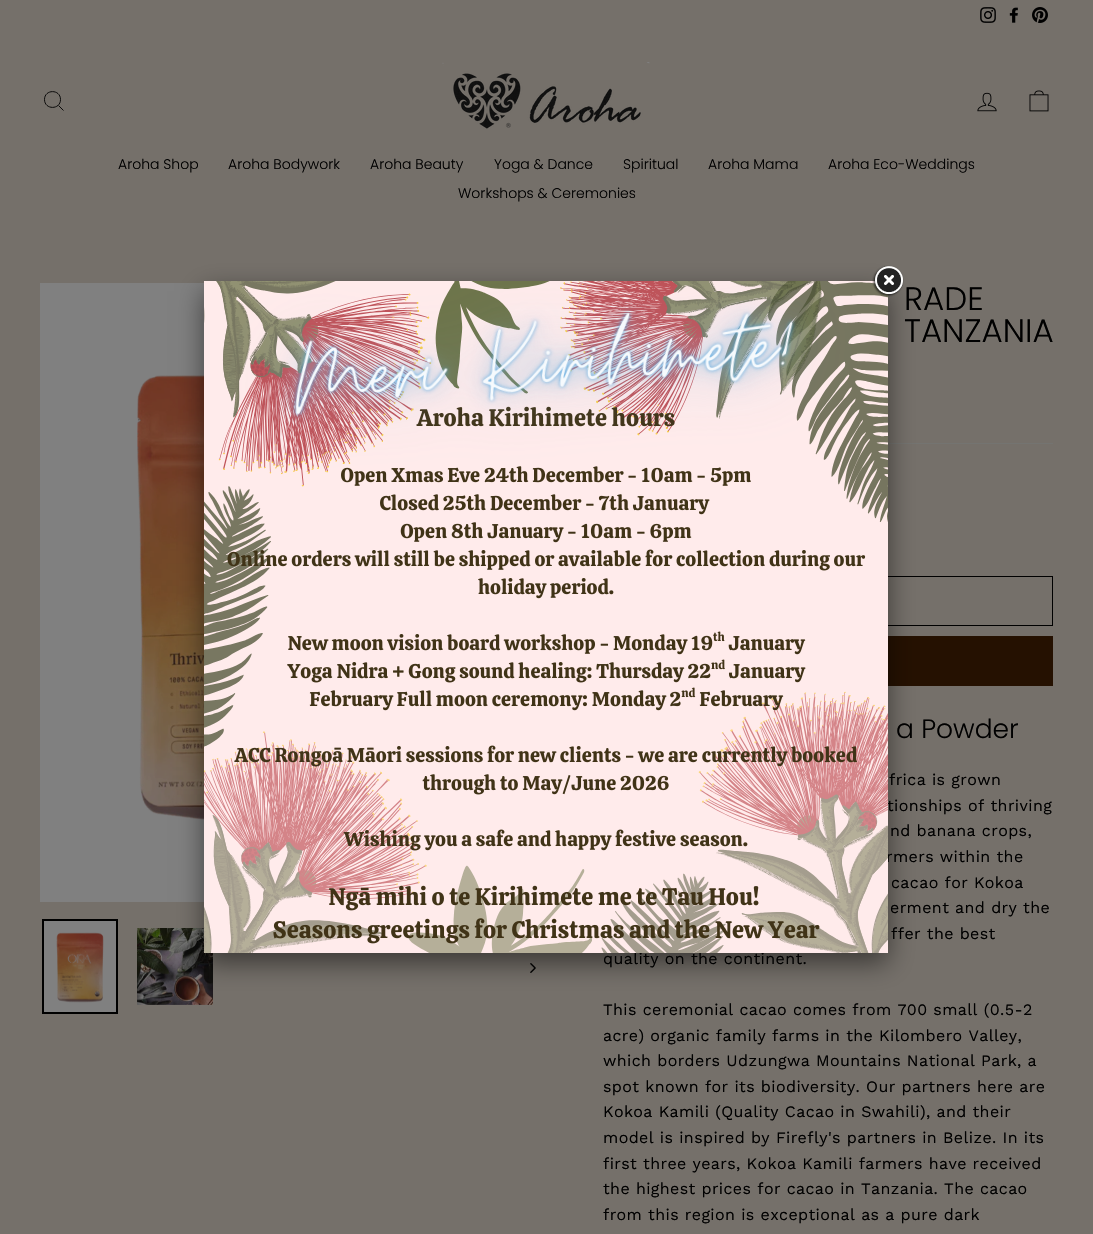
#include "include/core/SkBlurTypes.h"
#include "include/core/SkCanvas.h"
#include "include/core/SkData.h"
#include "include/core/SkFont.h"
#include "include/core/SkFontMgr.h"
#include "include/core/SkImage.h"
#include "include/core/SkMaskFilter.h"
#include "include/core/SkPaint.h"
#include "include/core/SkPathBuilder.h"
#include "include/core/SkTextBlob.h"
#include "include/effects/SkDashPathEffect.h"
#include "include/effects/SkGradientShader.h"
#include "include/utils/SkParsePath.h"

extern sk_sp<SkFontMgr> fontMgr;

static SkFont font(const char* family, int weight, float size, bool italic = false) {
    SkFontStyle style(weight, SkFontStyle::kNormal_Width,
        italic ? SkFontStyle::kItalic_Slant : SkFontStyle::kUpright_Slant);
    SkFont result(fontMgr->matchFamilyStyle(family, style), size);
    result.setSubpixel(true);
    return result;
}

static void drawLabel(SkCanvas* canvas, const char* s, float x, float y, const SkFont& font, SkColor color) {
    SkPaint ink(SkColor4f::FromColor(color));
    ink.setAntiAlias(true);
    canvas->drawString(s, x, y, font, ink);
}

static void drawTracked(SkCanvas* canvas, const char* s, float x, float y, const SkFont& font, const SkPaint& ink, float letter, float word) {
    std::vector<SkGlyphID> glyphs(font.countText(s, strlen(s), SkTextEncoding::kUTF8));
    std::vector<float> xs(glyphs.size());
    font.textToGlyphs(s, strlen(s), SkTextEncoding::kUTF8, glyphs);
    font.getXPos(glyphs, xs, x);
    float extra = 0;
    for (size_t i = 0; i < glyphs.size(); i++) {
        xs[i] += extra;
        extra += letter + word * (glyphs[i] == font.unicharToGlyph(' '));
    }
    canvas->drawTextBlob(SkTextBlob::MakeFromPosHGlyphs(glyphs, xs, y, font), 0, 0, ink);
}

static void fillRect(SkCanvas* canvas, float x, float y, float w, float h, SkColor color) {
    SkPaint ink(SkColor4f::FromColor(color));
    ink.setAntiAlias(true);
    canvas->drawRect(SkRect::MakeXYWH(x, y, w, h), ink);
}

static void drawPhoto(SkCanvas* canvas, const char* path, float x, float y, float w, float h) {
    auto image = SkImages::DeferredFromEncodedData(SkData::MakeFromFileName(path));
    canvas->drawImageRect(image, SkRect::MakeXYWH(x, y, w, h), SkSamplingOptions());
}

static SkPath parsePath(const char* data, bool evenOdd = false) {
    SkPath result = *SkParsePath::FromSVGString(data);
    if (evenOdd) result.setFillType(SkPathFillType::kEvenOdd);
    return result;
}

void draw(SkCanvas* canvas) {
    SkPaint paint;
    paint.setAntiAlias(true);
    canvas->clear(0xFF75706A);
    drawPhoto(canvas, "assets/img1.png", 980, 7, 16, 16);
    drawPhoto(canvas, "assets/img2.png", 1009, 7, 9, 16);
    drawPhoto(canvas, "assets/img3.png", 1032, 7, 16, 16);
    paint.setStroke(true);
    paint.setStrokeWidth(0.9f);
    paint.setColor(0xFF000000);
    canvas->drawPath(parsePath("M60.5 99.5C60.5 110 44.5 110 44.5 99.5C44.5 89 60.5 89 60.5 99.5ZM63.5 110.5L58.5 105.5"), paint);
    drawPhoto(canvas, "assets/img4.png", 442, 62, 208, 67);
    drawPhoto(canvas, "assets/img5.png", 977, 92, 20, 20);
    drawPhoto(canvas, "assets/img6.png", 1029, 90, 20, 22);
    SkFont font1 = font("Poppins", 300, 14);
    drawLabel(canvas, "Aroha Shop", 118, 169, font1, 0xFF000000);
    drawLabel(canvas, "Aroha Bodywork", 228, 169, font1, 0xFF000000);
    drawLabel(canvas, "Aroha Beauty", 370, 169, font1, 0xFF000000);
    drawLabel(canvas, "Yoga & Dance", 494, 169, font1, 0xFF000000);
    drawLabel(canvas, "Spiritual", 623, 169, font1, 0xFF000000);
    drawLabel(canvas, "Aroha Mama", 708, 169, font1, 0xFF000000);
    drawLabel(canvas, "Aroha Eco-Weddings", 828, 169, font1, 0xFF000000);
    drawLabel(canvas, "Workshops & Ceremonies", 458, 198, font1, 0xFF000000);
    fillRect(canvas, 40, 283, 164, 619, 0xFF808080);
    drawPhoto(canvas, "assets/img7.png", 137, 375, 67, 445);
    fillRect(canvas, 44, 921, 72, 91, 0xFF808080);
    drawPhoto(canvas, "assets/img8.png", 56, 932, 48, 71);
    paint.setStrokeWidth(2);
    canvas->drawRect(SkRect::MakeXYWH(43, 920, 74, 93), paint);
    drawPhoto(canvas, "assets/img9.png", 137, 928, 76, 77);
    drawPhoto(canvas, "assets/img10.png", 530, 963, 6, 10);
    SkFont font2 = font("Poppins", 300, 32.5f);
    drawLabel(canvas, "RADE", 904, 310, font2, 0xFF000000);
    drawLabel(canvas, "TANZANIA", 904, 342, font2, 0xFF000000);
    fillRect(canvas, 888, 443, 165, 1, 0xFF747471);
    paint.setStrokeWidth(1);
    canvas->drawRect(SkRect::MakeXYWH(603.5f, 576.5f, 449, 49), paint);
    fillRect(canvas, 888, 636, 165, 50, 0xFF251101);
    SkFont font3 = font("Poppins", 300, 26.5f);
    drawLabel(canvas, "a Powder", 896, 738, font3, 0xFF000000);
    SkFont font4 = font("Work Sans", 400, 16);
    paint.setStroke(false);
    drawTracked(canvas, "frica is grown", 889, 785, font4, paint, 0.4f, 0);
    drawTracked(canvas, "tionships of thriving", 887, 811, font4, paint, 0.4f, 0);
    drawTracked(canvas, "nd banana crops,", 890, 836, font4, paint, 0.4f, 0);
    drawTracked(canvas, "rmers within the", 886, 862, font4, paint, 0.4f, 0);
    drawTracked(canvas, "cacao for Kokoa", 891, 888, font4, paint, 0.4f, 0);
    drawTracked(canvas, "erment and dry the", 890, 913, font4, paint, 0.4f, 0);
    drawTracked(canvas, "ffer the best", 891, 939, font4, paint, 0.4f, 0);
    drawTracked(canvas, "quality on the continent.", 603, 964, font4, paint, 0.4f, 0);
    drawTracked(canvas, "This ceremonial cacao comes from 700 small (0.5-2", 603, 1015, font4, paint, 0.4f, 0);
    drawTracked(canvas, "acre) organic family farms in the Kilombero Valley,", 603, 1041, font4, paint, 0.4f, 0);
    drawTracked(canvas, "which borders Udzungwa Mountains National Park, a", 603, 1066, font4, paint, 0.4f, 0);
    drawTracked(canvas, "spot known for its biodiversity. Our partners here are", 603, 1092, font4, paint, 0.4f, 0);
    drawTracked(canvas, "Kokoa Kamili (Quality Cacao in Swahili), and their", 603, 1117, font4, paint, 0.4f, 0);
    drawTracked(canvas, "model is inspired by Firefly's partners in Belize. In its", 603, 1143, font4, paint, 0.4f, 0);
    drawTracked(canvas, "first three years, Kokoa Kamili farmers have received", 603, 1169, font4, paint, 0.4f, 0);
    drawTracked(canvas, "the highest prices for cacao in Tanzania. The cacao", 603, 1194, font4, paint, 0.4f, 0);
    drawTracked(canvas, "from this region is exceptional as a pure dark", 603, 1220, font4, paint, 0.4f, 0);
    paint.setColor(0x80000000);
    paint.setMaskFilter(SkMaskFilter::MakeBlur(kNormal_SkBlurStyle, 12.5f));
    canvas->drawRect(SkRect::MakeXYWH(204, 291, 684, 672), paint);
    paint.setMaskFilter(nullptr);
    drawPhoto(canvas, "assets/img12.png", 204, 281, 684, 672);
    drawPhoto(canvas, "assets/img11.png", 872, 265, 32, 32);
}
